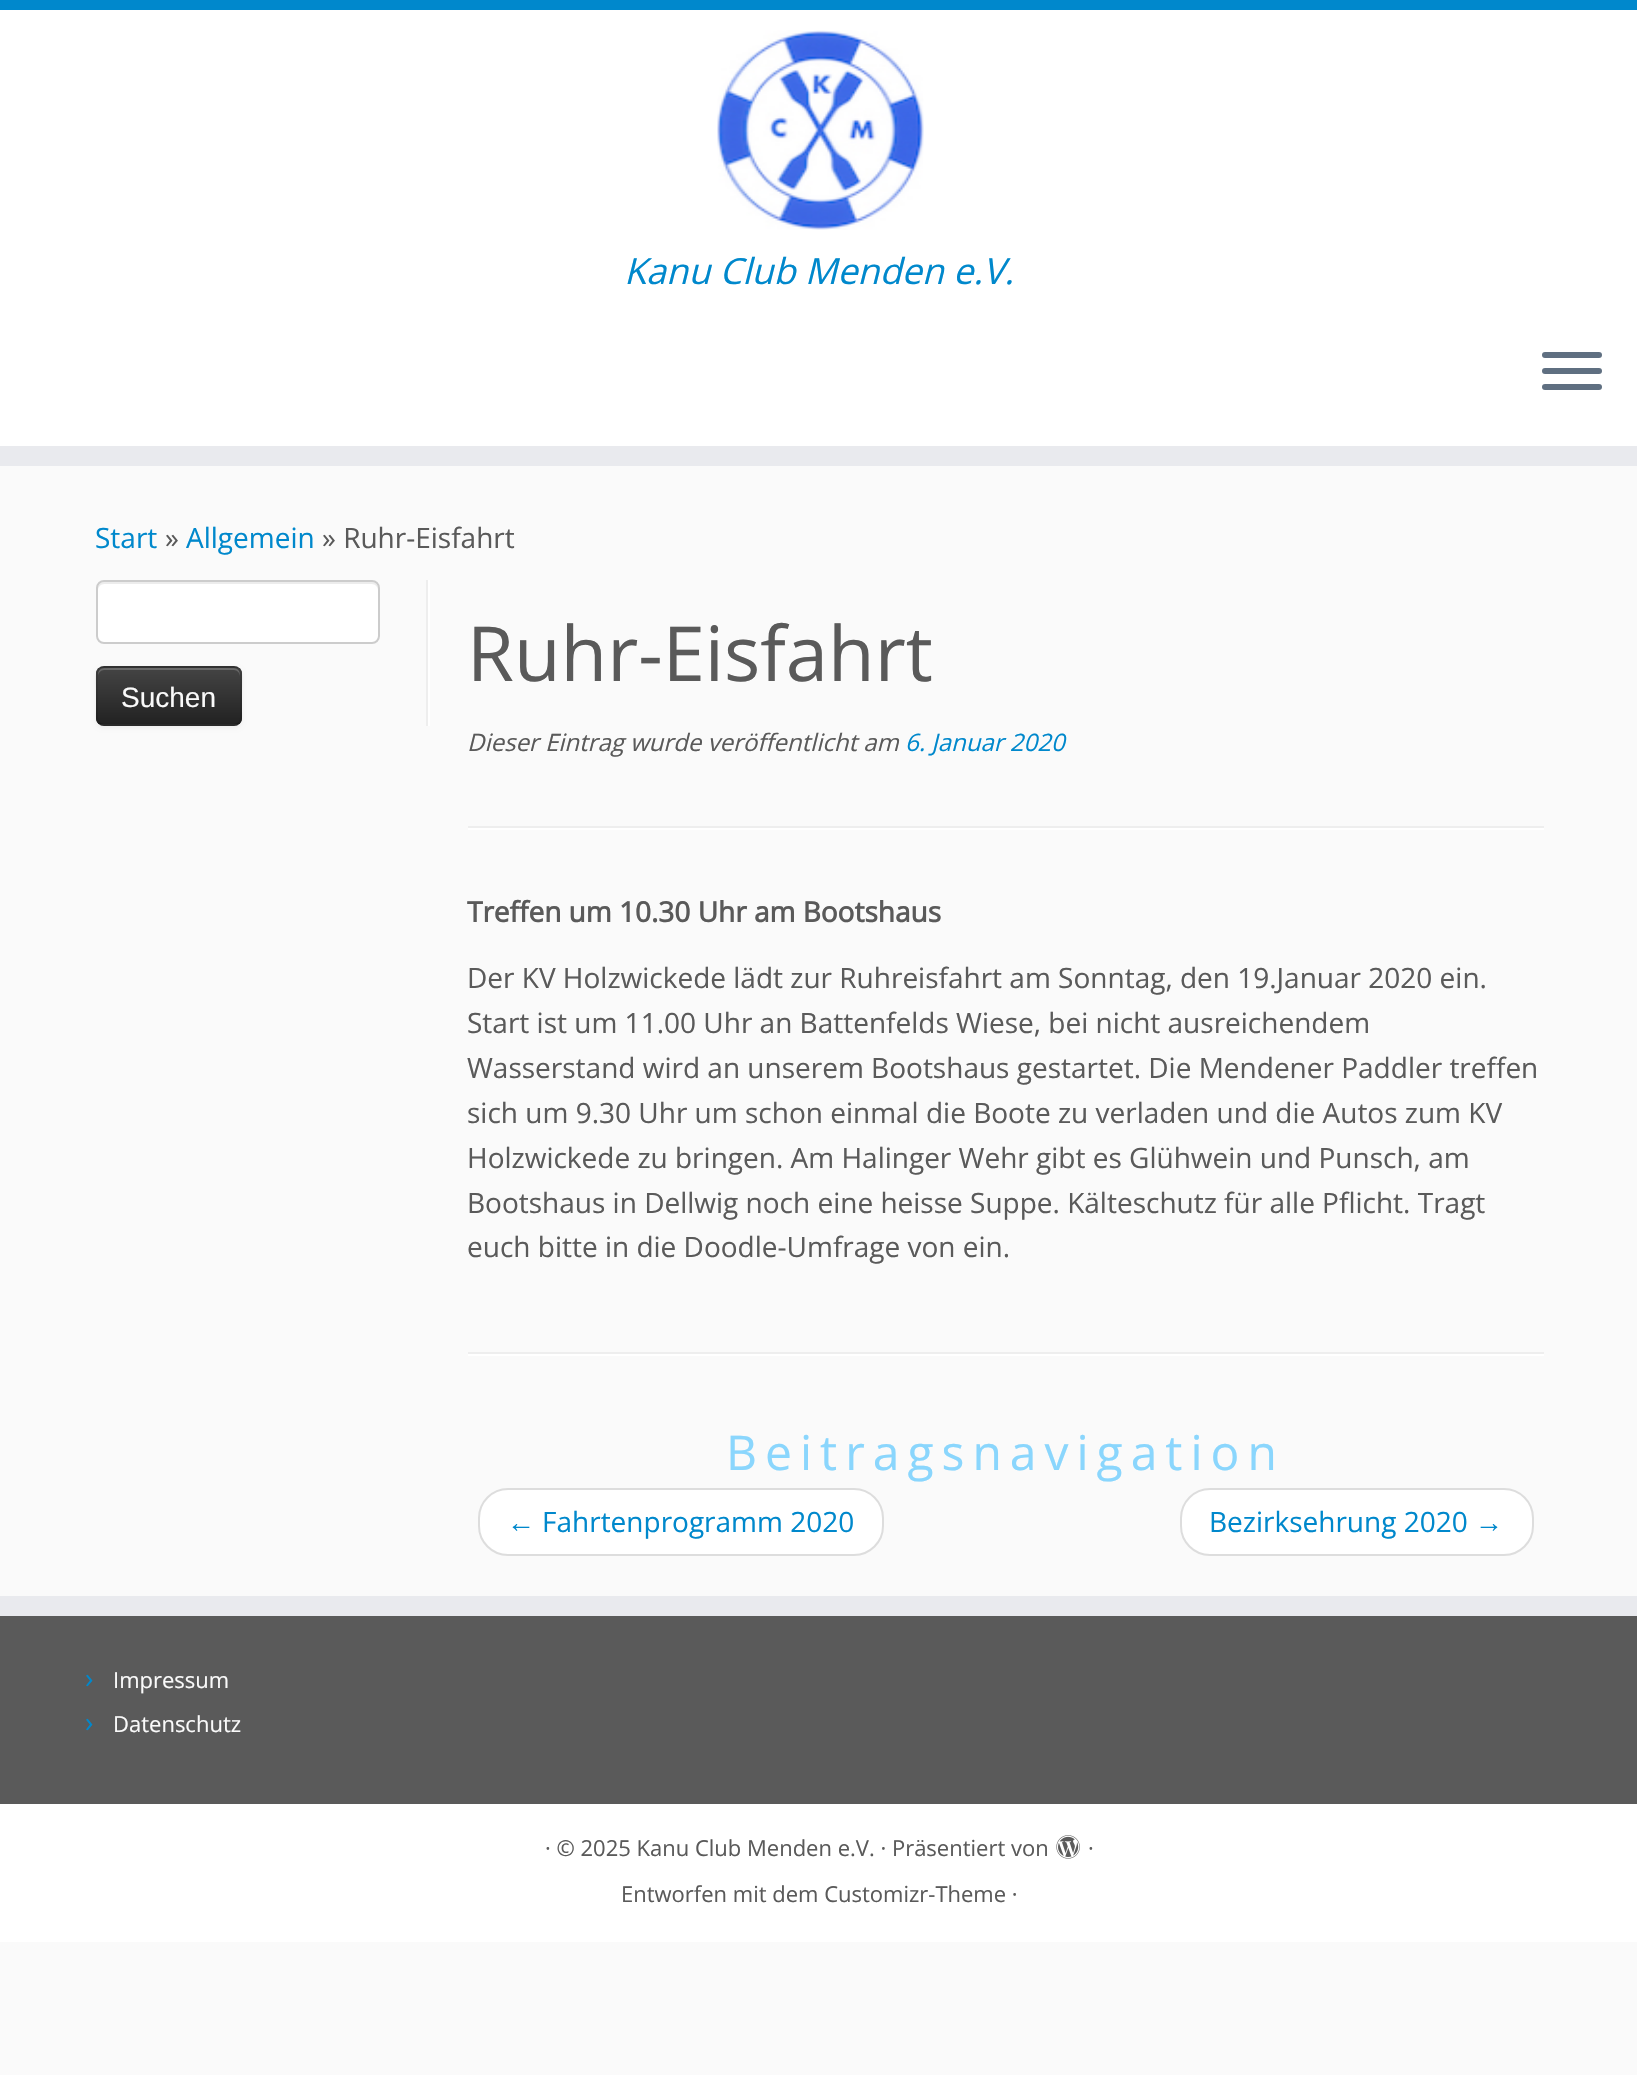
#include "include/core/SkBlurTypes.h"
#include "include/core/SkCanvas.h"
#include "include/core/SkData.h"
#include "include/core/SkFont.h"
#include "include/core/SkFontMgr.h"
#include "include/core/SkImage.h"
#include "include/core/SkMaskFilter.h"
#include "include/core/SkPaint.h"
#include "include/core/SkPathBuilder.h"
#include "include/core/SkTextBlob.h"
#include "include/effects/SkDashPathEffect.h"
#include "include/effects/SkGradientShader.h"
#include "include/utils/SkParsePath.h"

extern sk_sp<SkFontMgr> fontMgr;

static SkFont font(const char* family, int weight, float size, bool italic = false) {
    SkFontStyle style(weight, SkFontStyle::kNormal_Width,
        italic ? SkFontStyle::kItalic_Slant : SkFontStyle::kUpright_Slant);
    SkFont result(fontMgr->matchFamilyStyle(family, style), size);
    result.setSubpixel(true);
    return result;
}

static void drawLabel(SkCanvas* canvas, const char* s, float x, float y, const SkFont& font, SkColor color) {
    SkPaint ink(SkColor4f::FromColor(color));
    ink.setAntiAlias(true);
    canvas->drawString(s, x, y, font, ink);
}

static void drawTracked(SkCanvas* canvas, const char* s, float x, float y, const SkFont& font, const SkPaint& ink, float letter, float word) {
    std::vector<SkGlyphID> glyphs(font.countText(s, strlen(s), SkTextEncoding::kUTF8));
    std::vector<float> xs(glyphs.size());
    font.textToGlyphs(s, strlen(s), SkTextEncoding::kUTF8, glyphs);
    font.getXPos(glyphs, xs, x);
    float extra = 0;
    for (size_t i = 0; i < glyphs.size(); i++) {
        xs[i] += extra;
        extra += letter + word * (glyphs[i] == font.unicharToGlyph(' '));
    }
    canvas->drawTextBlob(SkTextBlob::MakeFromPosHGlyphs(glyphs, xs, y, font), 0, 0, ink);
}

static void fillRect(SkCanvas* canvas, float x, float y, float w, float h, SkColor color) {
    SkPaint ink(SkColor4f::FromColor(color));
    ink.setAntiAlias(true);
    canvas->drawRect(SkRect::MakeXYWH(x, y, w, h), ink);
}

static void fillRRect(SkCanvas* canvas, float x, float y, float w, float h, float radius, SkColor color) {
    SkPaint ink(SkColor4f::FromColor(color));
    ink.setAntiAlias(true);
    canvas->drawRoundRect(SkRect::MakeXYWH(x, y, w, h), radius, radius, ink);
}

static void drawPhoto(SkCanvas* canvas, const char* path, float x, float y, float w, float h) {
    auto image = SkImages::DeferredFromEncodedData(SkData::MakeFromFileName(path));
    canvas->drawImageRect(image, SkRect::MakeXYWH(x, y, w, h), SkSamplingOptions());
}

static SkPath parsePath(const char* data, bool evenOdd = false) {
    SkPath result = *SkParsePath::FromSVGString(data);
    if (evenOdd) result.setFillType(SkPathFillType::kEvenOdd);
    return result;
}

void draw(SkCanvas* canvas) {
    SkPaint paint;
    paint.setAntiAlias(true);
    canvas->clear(0xFFFAFAFA);
    fillRect(canvas, 0, 10, 1637, 436, 0xFFFFFFFF);
    fillRect(canvas, 0, 0, 1637, 10, 0xFF0088CC);
    fillRect(canvas, 0, 446, 1637, 20, 0xFFE9EAEE);
    drawPhoto(canvas, "assets/img1.png", 717, 30, 207, 200);
    SkFont font1 = font("Open Sans", 400, 36, true);
    drawLabel(canvas, "Kanu Club Menden e.V.", 624, 284, font1, 0xFF0088CC);
    fillRRect(canvas, 1542, 352, 60, 6, 3, 0xFF5F6F81);
    fillRRect(canvas, 1542, 368, 60, 6, 3, 0xFF5F6F81);
    fillRRect(canvas, 1542, 384, 60, 6, 3, 0xFF5F6F81);
    SkFont font2 = font("Open Sans", 400, 28);
    drawLabel(canvas, "Start", 95, 548, font2, 0xFF0088CC);
    drawLabel(canvas, "»", 165, 548, font2, 0xFF5A5A5A);
    drawLabel(canvas, "Allgemein", 186, 548, font2, 0xFF0088CC);
    drawLabel(canvas, "» Ruhr-Eisfahrt", 322, 548, font2, 0xFF5A5A5A);
    fillRect(canvas, 426, 580, 2, 146, 0xFFEEEEEE);
    fillRRect(canvas, 96, 580, 284, 64, 8, 0xFFFFFFFF);
    paint.setColor(0xFFECECEC);
    canvas->drawPath(parsePath("M104 584H372C375 584 378 587 378 590V588C378 585 375 582 372 582H104C101 582 98 585 98 588V590C98 587 101 584 104 584Z"), paint);
    paint.setStroke(true);
    paint.setStrokeWidth(2);
    paint.setColor(0xFFCCCCCC);
    canvas->drawRoundRect(SkRect::MakeXYWH(97, 581, 282, 62), 7, 7, paint);
    paint.setStroke(false);
    paint.setColor(0x0D000000);
    paint.setMaskFilter(SkMaskFilter::MakeBlur(kNormal_SkBlurStyle, 2));
    canvas->drawRoundRect(SkRect::MakeXYWH(96, 668, 146, 60), 8, 8, paint);
    paint.setMaskFilter(nullptr);
    fillRRect(canvas, 96, 666, 146, 60, 8, 0xFF363636);
    canvas->save();
    canvas->clipPath(parsePath("M104 666H234C238.5 666 242 669.5 242 674V718C242 722.5 238.5 726 234 726H104C99.5 726 96 722.5 96 718V674C96 669.5 99.5 666 104 666Z"), true);
    {
        const SkColor colors[] = {0xFF444444, 0xFF222222};
        const float stops[] = {0, 1};
        const SkPoint ends[] = {{169, 668}, {169, 724}};
        paint.setShader(SkGradientShader::MakeLinear(ends, colors, stops, 2, SkTileMode::kClamp));
        paint.setAlpha(255);
    }
    canvas->drawRect(SkRect::MakeXYWH(96, 668, 146, 56), paint);
    canvas->restore();
    paint.setShader(nullptr);
    paint.setColor(0x33FFFFFF);
    canvas->drawPath(parsePath("M104 670H234C237 670 240 673 240 676V674C240 671 237 668 234 668H104C101 668 98 671 98 674V676C98 673 101 670 104 670Z"), paint);
    paint.setStroke(true);
    paint.setColor(0x40000000);
    canvas->drawPath(parsePath("M239 723C237.5 724.5 236 725 234 725H104C102 725 100.5 724.5 99 723"), paint);
    paint.setColor(0x1A000000);
    canvas->drawPath(parsePath("M99 723C96 720 97 714.5 97 710.5V696C97 663.5 92 667 125.5 667H212.5C246 667 241 663.5 241 696V710.5C241 714.5 242 720 239 723"), paint);
    SkFont font3 = font("Liberation Sans", 400, 28);
    drawLabel(canvas, "Suchen", 121, 707, font3, 0xFFFAFAFA);
    fillRect(canvas, 428, 580, 2, 146, 0xFFFFFFFF);
    SkFont font4 = font("Open Sans", 400, 76);
    drawLabel(canvas, "Ruhr-Eisfahrt", 467, 681, font4, 0xFF5A5A5A);
    SkFont font5 = font("Open Sans", 400, 24, true);
    drawLabel(canvas, "Dieser Eintrag wurde veröffentlicht am", 467, 751, font5, 0xFF5A5A5A);
    drawLabel(canvas, "6. Januar 2020", 905, 751, font5, 0xFF0088CC);
    fillRect(canvas, 468, 826, 1076, 2, 0xFFEEEEEE);
    fillRect(canvas, 468, 828, 1076, 2, 0xFFFFFFFF);
    SkFont font6 = font("Open Sans", 700, 28);
    drawLabel(canvas, "Treffen um 10.30 Uhr am Bootshaus", 467, 922, font6, 0xFF5A5A5A);
    drawLabel(canvas, "Der KV Holzwickede lädt zur Ruhreisfahrt am Sonntag, den 19.Januar 2020 ein.", 467, 988, font2, 0xFF5A5A5A);
    drawLabel(canvas, "Start ist um 11.00 Uhr an Battenfelds Wiese, bei nicht ausreichendem", 467, 1033, font2, 0xFF5A5A5A);
    drawLabel(canvas, "Wasserstand wird an unserem Bootshaus gestartet. Die Mendener Paddler treffen", 467, 1078, font2, 0xFF5A5A5A);
    drawLabel(canvas, "sich um 9.30 Uhr um schon einmal die Boote zu verladen und die Autos zum KV", 467, 1123, font2, 0xFF5A5A5A);
    drawLabel(canvas, "Holzwickede zu bringen. Am Halinger Wehr gibt es Glühwein und Punsch, am", 467, 1168, font2, 0xFF5A5A5A);
    drawLabel(canvas, "Bootshaus in Dellwig noch eine heisse Suppe. Kälteschutz für alle Pflicht. Tragt", 467, 1213, font2, 0xFF5A5A5A);
    drawLabel(canvas, "euch bitte in die Doodle-Umfrage von ein.", 467, 1257, font2, 0xFF5A5A5A);
    fillRect(canvas, 468, 1352, 1076, 2, 0xFFEEEEEE);
    fillRect(canvas, 468, 1354, 1076, 2, 0xFFFFFFFF);
    SkFont font7 = font("Open Sans", 400, 48);
    paint.setStroke(false);
    paint.setColor(0xFF8AD6FD);
    drawTracked(canvas, "Beitragsnavigation", 726, 1470, font7, paint, 8, 0);
    paint.setColor(0xFFFFFFFF);
    canvas->drawRoundRect(SkRect::MakeXYWH(479, 1489, 404, 66), 29, 29, paint);
    paint.setStroke(true);
    paint.setColor(0xFFDDDDDD);
    canvas->drawRoundRect(SkRect::MakeXYWH(479, 1489, 404, 66), 29, 29, paint);
    SkFont font8 = font("Liberation Serif", 400, 28);
    drawLabel(canvas, "←", 507, 1532, font8, 0xFF0088CC);
    drawLabel(canvas, "Fahrtenprogramm 2020", 542, 1532, font2, 0xFF0088CC);
    paint.setStroke(false);
    paint.setColor(0xFFFFFFFF);
    canvas->drawRoundRect(SkRect::MakeXYWH(1181, 1489, 352, 66), 29, 29, paint);
    paint.setStroke(true);
    paint.setColor(0xFFDDDDDD);
    canvas->drawRoundRect(SkRect::MakeXYWH(1181, 1489, 352, 66), 29, 29, paint);
    drawLabel(canvas, "Bezirksehrung 2020", 1209, 1532, font2, 0xFF0088CC);
    drawLabel(canvas, "→", 1475, 1532, font8, 0xFF0088CC);
    fillRect(canvas, 0, 1616, 1637, 188, 0xFF5A5A5A);
    fillRect(canvas, 0, 1596, 1637, 20, 0xFFE9EAEE);
    drawLabel(canvas, "›", 85, 1688, font2, 0xFF0088CC);
    SkFont font9 = font("Open Sans", 400, 22);
    drawLabel(canvas, "Impressum", 113, 1688, font9, 0xFFFAFAFA);
    drawLabel(canvas, "›", 85, 1732, font2, 0xFF0088CC);
    drawLabel(canvas, "Datenschutz", 113, 1732, font9, 0xFFFAFAFA);
    fillRect(canvas, 0, 1804, 1637, 138, 0xFFFFFFFF);
    drawLabel(canvas, "· © 2025 Kanu Club Menden e.V. · Präsentiert von", 545, 1856, font9, 0xFF5A5A5A);
    drawPhoto(canvas, "assets/img2.png", 1056, 1835, 24, 24);
    drawLabel(canvas, "·", 1088, 1856, font9, 0xFF5A5A5A);
    drawLabel(canvas, "Entworfen mit dem Customizr-Theme ·", 621, 1902, font9, 0xFF5A5A5A);
}
